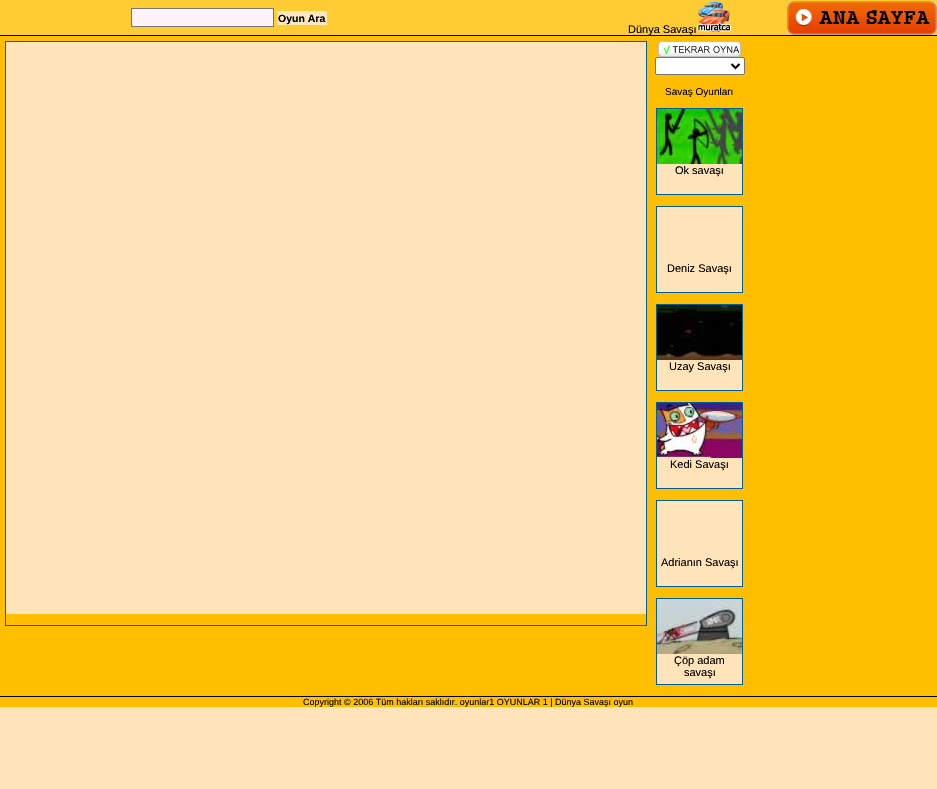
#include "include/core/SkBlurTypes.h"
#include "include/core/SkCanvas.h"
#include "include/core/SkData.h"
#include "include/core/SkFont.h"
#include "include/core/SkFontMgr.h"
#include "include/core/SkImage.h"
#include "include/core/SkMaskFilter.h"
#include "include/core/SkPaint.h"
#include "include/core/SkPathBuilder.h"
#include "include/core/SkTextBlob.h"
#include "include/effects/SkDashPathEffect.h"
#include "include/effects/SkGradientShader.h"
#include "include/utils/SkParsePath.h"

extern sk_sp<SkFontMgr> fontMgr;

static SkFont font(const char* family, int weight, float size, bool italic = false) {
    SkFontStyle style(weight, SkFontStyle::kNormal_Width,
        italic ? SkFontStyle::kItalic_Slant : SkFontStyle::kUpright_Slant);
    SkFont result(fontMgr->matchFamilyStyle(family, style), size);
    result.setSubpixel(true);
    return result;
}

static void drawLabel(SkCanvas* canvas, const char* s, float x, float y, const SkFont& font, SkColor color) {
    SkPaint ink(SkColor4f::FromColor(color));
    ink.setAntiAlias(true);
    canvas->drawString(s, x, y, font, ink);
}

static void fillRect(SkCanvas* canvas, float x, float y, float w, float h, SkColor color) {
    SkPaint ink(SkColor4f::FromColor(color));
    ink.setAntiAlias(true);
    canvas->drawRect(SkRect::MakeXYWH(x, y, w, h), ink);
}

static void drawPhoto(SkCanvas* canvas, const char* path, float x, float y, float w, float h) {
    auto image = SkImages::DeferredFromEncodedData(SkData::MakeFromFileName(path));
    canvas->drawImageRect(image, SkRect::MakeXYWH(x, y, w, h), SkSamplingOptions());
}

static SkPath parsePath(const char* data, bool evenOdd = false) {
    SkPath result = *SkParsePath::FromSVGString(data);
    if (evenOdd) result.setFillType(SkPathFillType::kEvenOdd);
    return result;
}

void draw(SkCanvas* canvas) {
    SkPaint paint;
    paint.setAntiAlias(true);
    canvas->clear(0xFFFFE4B9);
    fillRect(canvas, 0, 0, 937, 35, 0xFFFFCC33);
    paint.setColor(0xFFFFF2F9);
    canvas->drawRect(SkRect::MakeXYWH(131.5f, 8.5f, 142, 18), paint);
    paint.setStroke(true);
    paint.setStrokeWidth(1);
    paint.setColor(0xFF767676);
    canvas->drawRect(SkRect::MakeXYWH(131.5f, 8.5f, 142, 18), paint);
    fillRect(canvas, 277, 11, 50, 14, 0xFFFFE7BD);
    SkFont font1 = font("Liberation Sans", 700, 10.5f);
    drawLabel(canvas, "Oyun Ara", 278, 22, font1, 0xFF000000);
    drawPhoto(canvas, "assets/img1.png", 697, 1, 34, 31);
    drawPhoto(canvas, "assets/img2.png", 787, 1, 150, 34);
    fillRect(canvas, 0, 35, 937, 1, 0xFF000000);
    SkFont font2 = font("Liberation Sans", 400, 11);
    drawLabel(canvas, "Dünya Savaşı", 628, 33, font2, 0xFF000000);
    fillRect(canvas, 0, 36, 937, 5, 0xFFFFBE00);
    fillRect(canvas, 0, 41, 937, 655, 0xFFFFBE00);
    fillRect(canvas, 6, 42, 640, 572, 0xFFFFE4B9);
    paint.setColor(0xFF005F9A);
    canvas->drawRect(SkRect::MakeXYWH(5.5f, 41.5f, 641, 584), paint);
    drawPhoto(canvas, "assets/img3.png", 658, 41, 83, 16);
    paint.setStroke(false);
    paint.setColor(0xFFFFFFFF);
    canvas->drawRoundRect(SkRect::MakeXYWH(655.5f, 57.5f, 89, 17), 1.5f, 1.5f, paint);
    paint.setStroke(true);
    paint.setColor(0xFF767676);
    canvas->drawRoundRect(SkRect::MakeXYWH(655.5f, 57.5f, 89, 17), 1.5f, 1.5f, paint);
    paint.setStrokeWidth(2);
    paint.setColor(0xFF000000);
    canvas->drawPath(parsePath("M731.5 64L735.5 68L739.5 64"), paint);
    SkFont font3 = font("Liberation Sans", 400, 10);
    drawLabel(canvas, "Savaş Oyunları", 665, 95, font3, 0xFF000000);
    fillRect(canvas, 657, 164, 85, 30, 0xFFFFE4B9);
    paint.setStrokeWidth(1);
    paint.setColor(0xFF005F9A);
    canvas->drawRect(SkRect::MakeXYWH(656.5f, 108.5f, 86, 86), paint);
    drawPhoto(canvas, "assets/img4.png", 657, 109, 85, 55);
    drawLabel(canvas, "Ok savaşı", 675, 174, font2, 0xFF000000);
    paint.setStroke(false);
    paint.setColor(0xFFFFE4B9);
    canvas->drawRect(SkRect::MakeXYWH(656.5f, 206.5f, 86, 86), paint);
    paint.setStroke(true);
    paint.setColor(0xFF005F9A);
    canvas->drawRect(SkRect::MakeXYWH(656.5f, 206.5f, 86, 86), paint);
    drawLabel(canvas, "Deniz Savaşı", 667, 272, font2, 0xFF000000);
    fillRect(canvas, 657, 360, 85, 30, 0xFFFFE4B9);
    canvas->drawRect(SkRect::MakeXYWH(656.5f, 304.5f, 86, 86), paint);
    drawPhoto(canvas, "assets/img5.png", 657, 305, 85, 55);
    drawLabel(canvas, "Uzay Savaşı", 669, 370, font2, 0xFF000000);
    fillRect(canvas, 657, 458, 85, 30, 0xFFFFE4B9);
    canvas->drawRect(SkRect::MakeXYWH(656.5f, 402.5f, 86, 86), paint);
    drawPhoto(canvas, "assets/img6.png", 657, 403, 85, 55);
    drawLabel(canvas, "Kedi Savaşı", 670, 468, font2, 0xFF000000);
    paint.setStroke(false);
    paint.setColor(0xFFFFE4B9);
    canvas->drawRect(SkRect::MakeXYWH(656.5f, 500.5f, 86, 86), paint);
    paint.setStroke(true);
    paint.setColor(0xFF005F9A);
    canvas->drawRect(SkRect::MakeXYWH(656.5f, 500.5f, 86, 86), paint);
    drawLabel(canvas, "Adrianın Savaşı", 661, 566, font2, 0xFF000000);
    fillRect(canvas, 657, 654, 85, 30, 0xFFFFE4B9);
    canvas->drawRect(SkRect::MakeXYWH(656.5f, 598.5f, 86, 86), paint);
    drawPhoto(canvas, "assets/img7.png", 657, 599, 85, 55);
    drawLabel(canvas, "Çöp adam", 674, 664, font2, 0xFF000000);
    drawLabel(canvas, "savaşı", 684, 676, font2, 0xFF000000);
    fillRect(canvas, 0, 696, 937, 1, 0xFF000000);
    fillRect(canvas, 0, 697, 937, 10, 0xFFFFBE00);
    SkFont font4 = font("Liberation Sans", 400, 9);
    drawLabel(canvas, "Copyright © 2006 Tüm hakları saklıdır. oyunlar1 OYUNLAR 1 | Dünya Savaşı oyun", 303, 705, font4, 0xFF000000);
}
